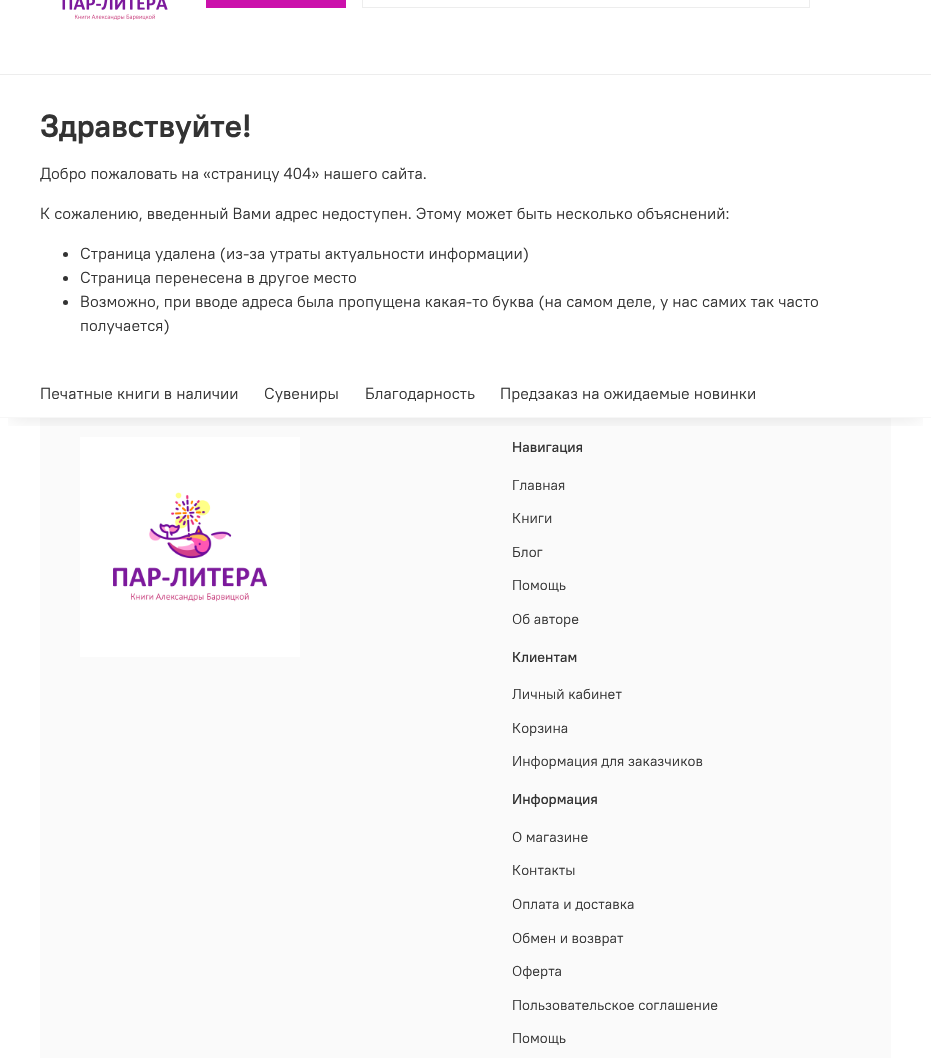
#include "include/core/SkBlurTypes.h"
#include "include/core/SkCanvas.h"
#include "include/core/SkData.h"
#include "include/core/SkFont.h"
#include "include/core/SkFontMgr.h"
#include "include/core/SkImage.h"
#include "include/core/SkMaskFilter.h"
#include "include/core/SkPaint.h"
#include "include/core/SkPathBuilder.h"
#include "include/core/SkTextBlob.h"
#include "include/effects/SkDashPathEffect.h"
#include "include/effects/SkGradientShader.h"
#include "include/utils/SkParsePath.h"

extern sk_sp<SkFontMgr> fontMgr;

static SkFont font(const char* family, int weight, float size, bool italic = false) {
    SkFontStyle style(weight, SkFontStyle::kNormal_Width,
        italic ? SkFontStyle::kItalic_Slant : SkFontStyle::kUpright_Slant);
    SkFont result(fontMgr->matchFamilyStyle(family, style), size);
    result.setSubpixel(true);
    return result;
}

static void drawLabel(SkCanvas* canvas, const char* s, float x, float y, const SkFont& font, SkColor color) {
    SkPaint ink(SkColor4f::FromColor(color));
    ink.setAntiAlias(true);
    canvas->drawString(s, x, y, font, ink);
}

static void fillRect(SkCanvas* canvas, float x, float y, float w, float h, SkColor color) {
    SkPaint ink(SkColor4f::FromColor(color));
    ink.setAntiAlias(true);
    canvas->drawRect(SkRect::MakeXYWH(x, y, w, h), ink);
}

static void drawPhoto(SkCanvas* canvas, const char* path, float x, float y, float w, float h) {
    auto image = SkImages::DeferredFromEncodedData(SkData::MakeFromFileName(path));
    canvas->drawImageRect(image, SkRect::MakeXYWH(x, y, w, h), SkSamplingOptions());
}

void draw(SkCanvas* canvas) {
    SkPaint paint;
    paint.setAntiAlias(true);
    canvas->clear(0xFFFFFFFF);
    fillRect(canvas, 0, 74, 931, 1, 0xFFEDEDED);
    drawPhoto(canvas, "assets/img1.png", 62, 0, 106, 20);
    fillRect(canvas, 206, 0, 140, 8, 0xFFCB11AB);
    fillRect(canvas, 362, 7, 398, 1, 0xFFEDEDED);
    fillRect(canvas, 362, 0, 1, 8, 0xFFEDEDED);
    fillRect(canvas, 809, 0, 1, 8, 0xFFEDEDED);
    fillRect(canvas, 760, 7, 50, 1, 0xFFEDEDED);
    SkFont font1 = font("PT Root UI", 700, 32);
    drawLabel(canvas, "Здравствуйте!", 40, 137, font1, 0xFF333333);
    SkFont font2 = font("PT Root UI", 400, 16);
    drawLabel(canvas, "Добро пожаловать на «страницу 404» нашего сайта.", 40, 179, font2, 0xFF333333);
    drawLabel(canvas, "К сожалению, введенный Вами адрес недоступен. Этому может быть несколько объяснений:", 40, 219, font2, 0xFF333333);
    paint.setColor(0xFF333333);
    canvas->drawCircle(65.5f, 254.5f, 2.5f, paint);
    drawLabel(canvas, "Страница удалена (из-за утраты актуальности информации)", 80, 259, font2, 0xFF333333);
    canvas->drawCircle(65.5f, 278.5f, 2.5f, paint);
    drawLabel(canvas, "Страница перенесена в другое место", 80, 283, font2, 0xFF333333);
    canvas->drawCircle(65.5f, 302.5f, 2.5f, paint);
    drawLabel(canvas, "Возможно, при вводе адреса была пропущена какая-то буква (на самом деле, у нас самих так часто", 80, 307, font2, 0xFF333333);
    drawLabel(canvas, "получается)", 80, 331, font2, 0xFF333333);
    fillRect(canvas, 40, 418, 851, 640, 0xFFFAFAFA);
    drawPhoto(canvas, "assets/img2.png", 80, 437, 220, 220);
    canvas->save();
    canvas->clipRect(SkRect::MakeXYWH(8, 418, 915, 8));
    paint.setColor(0x1A000000);
    paint.setMaskFilter(SkMaskFilter::MakeBlur(kNormal_SkBlurStyle, 10));
    canvas->drawRect(SkRect::MakeXYWH(10, 389, 911, 29), paint);
    paint.setMaskFilter(nullptr);
    canvas->restore();
    fillRect(canvas, 0, 417, 931, 1, 0xFFF7F7F7);
    drawLabel(canvas, "Печатные книги в наличии", 40, 399, font2, 0xFF333333);
    drawLabel(canvas, "Сувениры", 264, 399, font2, 0xFF333333);
    drawLabel(canvas, "Благодарность", 365, 399, font2, 0xFF333333);
    drawLabel(canvas, "Предзаказ на ожидаемые новинки", 500, 399, font2, 0xFF333333);
    SkFont font3 = font("PT Root UI", 500, 14.4f);
    drawLabel(canvas, "Навигация", 512, 452, font3, 0xFF333333);
    SkFont font4 = font("PT Root UI", 400, 14.4f);
    drawLabel(canvas, "Главная", 512, 490, font4, 0xFF333333);
    drawLabel(canvas, "Книги", 512, 523, font4, 0xFF333333);
    drawLabel(canvas, "Блог", 512, 557, font4, 0xFF333333);
    drawLabel(canvas, "Помощь", 512, 590, font4, 0xFF333333);
    drawLabel(canvas, "Об авторе", 512, 624, font4, 0xFF333333);
    drawLabel(canvas, "Клиентам", 512, 662, font3, 0xFF333333);
    drawLabel(canvas, "Личный кабинет", 512, 699, font4, 0xFF333333);
    drawLabel(canvas, "Корзина", 512, 733, font4, 0xFF333333);
    drawLabel(canvas, "Информация для заказчиков", 512, 766, font4, 0xFF333333);
    drawLabel(canvas, "Информация", 512, 804, font3, 0xFF333333);
    drawLabel(canvas, "О магазине", 512, 842, font4, 0xFF333333);
    drawLabel(canvas, "Контакты", 512, 875, font4, 0xFF333333);
    drawLabel(canvas, "Оплата и доставка", 512, 909, font4, 0xFF333333);
    drawLabel(canvas, "Обмен и возврат", 512, 943, font4, 0xFF333333);
    drawLabel(canvas, "Оферта", 512, 976, font4, 0xFF333333);
    drawLabel(canvas, "Пользовательское соглашение", 512, 1010, font4, 0xFF333333);
    drawLabel(canvas, "Помощь", 512, 1043, font4, 0xFF333333);
}
